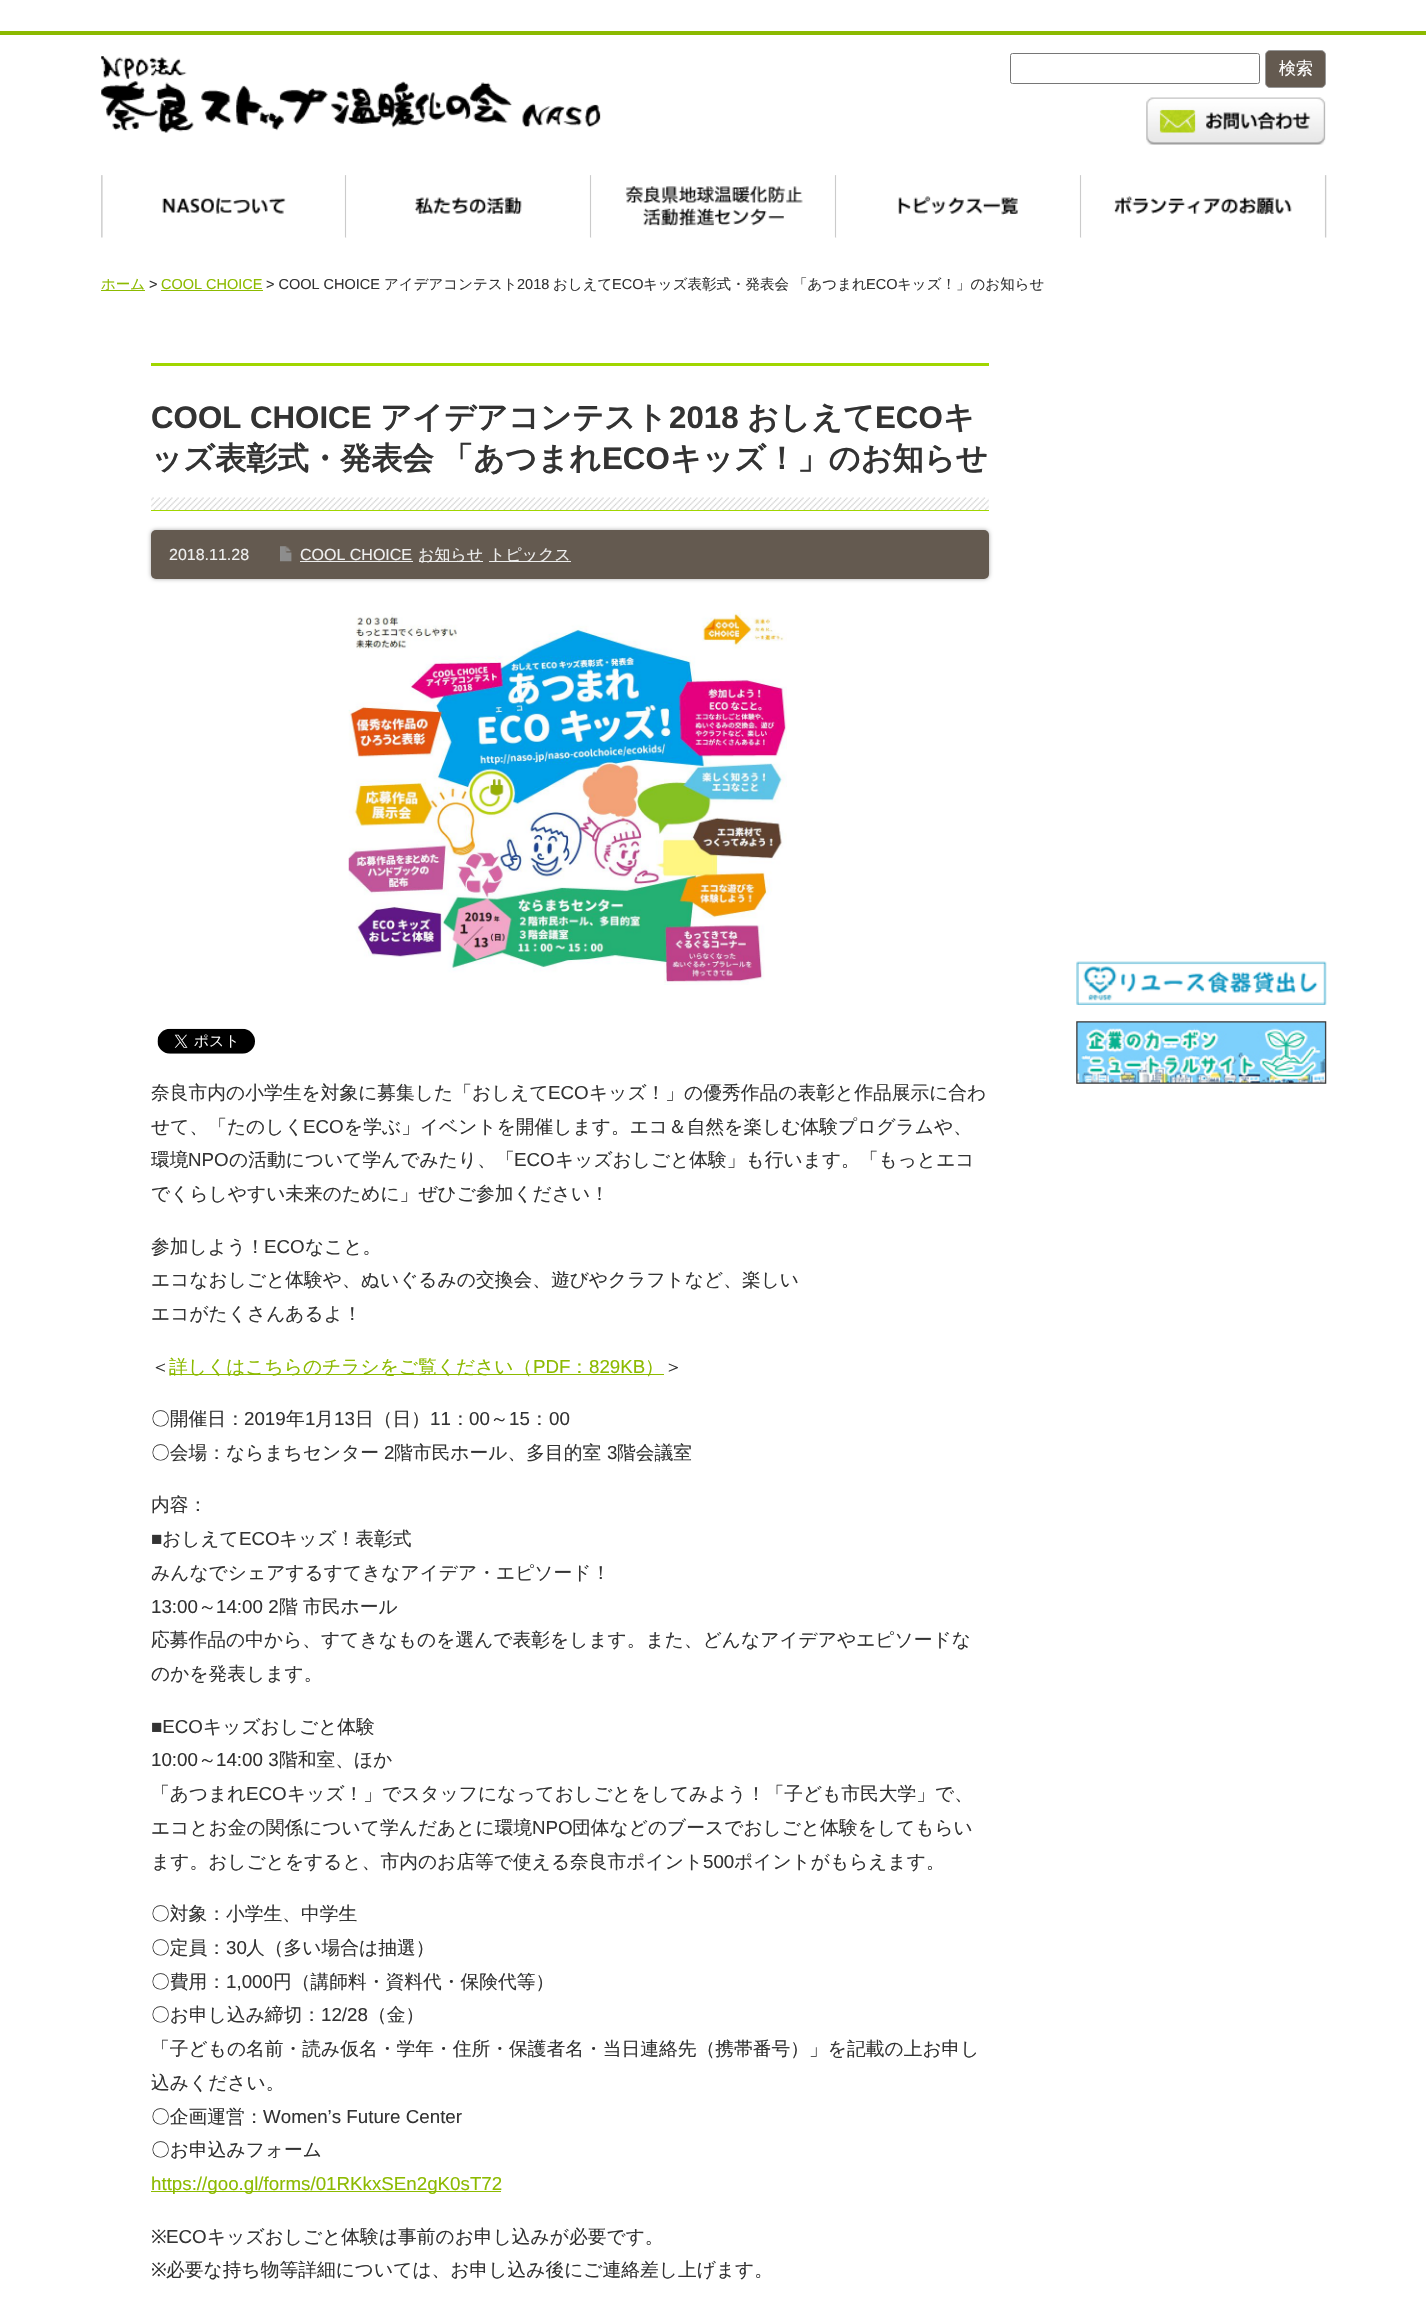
#include "include/core/SkBlurTypes.h"
#include "include/core/SkCanvas.h"
#include "include/core/SkData.h"
#include "include/core/SkFont.h"
#include "include/core/SkFontMgr.h"
#include "include/core/SkImage.h"
#include "include/core/SkMaskFilter.h"
#include "include/core/SkPaint.h"
#include "include/core/SkPathBuilder.h"
#include "include/core/SkTextBlob.h"
#include "include/effects/SkDashPathEffect.h"
#include "include/effects/SkGradientShader.h"
#include "include/utils/SkParsePath.h"

extern sk_sp<SkFontMgr> fontMgr;

static SkFont font(const char* family, int weight, float size, bool italic = false) {
    SkFontStyle style(weight, SkFontStyle::kNormal_Width,
        italic ? SkFontStyle::kItalic_Slant : SkFontStyle::kUpright_Slant);
    SkFont result(fontMgr->matchFamilyStyle(family, style), size);
    result.setSubpixel(true);
    return result;
}

static void drawLabel(SkCanvas* canvas, const char* s, float x, float y, const SkFont& font, SkColor color) {
    SkPaint ink(SkColor4f::FromColor(color));
    ink.setAntiAlias(true);
    canvas->drawString(s, x, y, font, ink);
}

static void drawTracked(SkCanvas* canvas, const char* s, float x, float y, const SkFont& font, const SkPaint& ink, float letter, float word) {
    std::vector<SkGlyphID> glyphs(font.countText(s, strlen(s), SkTextEncoding::kUTF8));
    std::vector<float> xs(glyphs.size());
    font.textToGlyphs(s, strlen(s), SkTextEncoding::kUTF8, glyphs);
    font.getXPos(glyphs, xs, x);
    float extra = 0;
    for (size_t i = 0; i < glyphs.size(); i++) {
        xs[i] += extra;
        extra += letter + word * (glyphs[i] == font.unicharToGlyph(' '));
    }
    canvas->drawTextBlob(SkTextBlob::MakeFromPosHGlyphs(glyphs, xs, y, font), 0, 0, ink);
}

static void fillRect(SkCanvas* canvas, float x, float y, float w, float h, SkColor color) {
    SkPaint ink(SkColor4f::FromColor(color));
    ink.setAntiAlias(true);
    canvas->drawRect(SkRect::MakeXYWH(x, y, w, h), ink);
}

static void fillRRect(SkCanvas* canvas, float x, float y, float w, float h, float radius, SkColor color) {
    SkPaint ink(SkColor4f::FromColor(color));
    ink.setAntiAlias(true);
    canvas->drawRoundRect(SkRect::MakeXYWH(x, y, w, h), radius, radius, ink);
}

static void drawPhoto(SkCanvas* canvas, const char* path, float x, float y, float w, float h) {
    auto image = SkImages::DeferredFromEncodedData(SkData::MakeFromFileName(path));
    canvas->drawImageRect(image, SkRect::MakeXYWH(x, y, w, h), SkSamplingOptions());
}

void draw(SkCanvas* canvas) {
    SkPaint paint;
    paint.setAntiAlias(true);
    canvas->clear(0xFFFFFFFF);
    fillRect(canvas, 0, 31, 1426, 4, 0xFF8CBA00);
    drawPhoto(canvas, "assets/img1.png", 101, 56, 500, 77);
    paint.setStroke(true);
    paint.setStrokeWidth(1);
    paint.setColor(0xFF767676);
    canvas->drawRoundRect(SkRect::MakeXYWH(1010.5f, 53.5f, 249, 30), 2, 2, paint);
    paint.setStroke(false);
    paint.setColor(0xFF645A50);
    canvas->drawRoundRect(SkRect::MakeXYWH(1265.5f, 50.5f, 60, 37), 4.5f, 4.5f, paint);
    paint.setStroke(true);
    paint.setColor(0xFF999999);
    canvas->drawRoundRect(SkRect::MakeXYWH(1265.5f, 50.5f, 60, 37), 4.5f, 4.5f, paint);
    SkFont font1 = font("WenQuanYi Zen Hei", 500, 17);
    drawLabel(canvas, "検索", 1279, 74, font1, 0xFFFFFFFF);
    drawPhoto(canvas, "assets/img2.png", 1146, 97, 180, 48);
    drawPhoto(canvas, "assets/img3.png", 101, 175, 246, 63);
    drawPhoto(canvas, "assets/img4.png", 346, 175, 246, 63);
    drawPhoto(canvas, "assets/img5.png", 591, 175, 246, 63);
    drawPhoto(canvas, "assets/img6.png", 836, 175, 246, 63);
    drawPhoto(canvas, "assets/img7.png", 1081, 175, 246, 63);
    fillRect(canvas, 101, 290, 44, 1, 0xFF8CBA00);
    SkFont font2 = font("WenQuanYi Zen Hei", 500, 14.5f);
    drawLabel(canvas, "ホーム", 101, 289, font2, 0xFF8CBA00);
    SkFont font3 = font("Liberation Sans", 400, 14.5f);
    drawLabel(canvas, ">", 149, 289, font3, 0xFF333333);
    drawLabel(canvas, "COOL CHOICE", 161, 289, font3, 0xFF8CBA00);
    fillRect(canvas, 161, 290, 102, 1, 0xFF8CBA00);
    drawLabel(canvas, "> COOL CHOICE", 266, 289, font3, 0xFF333333);
    drawLabel(canvas, "アイデアコンテスト", 384, 289, font2, 0xFF333333);
    drawLabel(canvas, "2018", 517, 289, font3, 0xFF333333);
    drawLabel(canvas, "おしえて", 553, 289, font2, 0xFF333333);
    drawLabel(canvas, "ECO", 612, 289, font3, 0xFF333333);
    drawLabel(canvas, "キッズ表彰式・発表会", 643, 289, font2, 0xFF333333);
    drawLabel(canvas, "「あつまれ", 793, 289, font2, 0xFF333333);
    drawLabel(canvas, "ECO", 866, 289, font3, 0xFF333333);
    drawLabel(canvas, "キッズ！」のお知らせ", 897, 289, font2, 0xFF333333);
    drawPhoto(canvas, "assets/img8.png", 151, 497, 838, 13);
    fillRect(canvas, 151, 363, 838, 3, 0xFFA1D600);
    fillRect(canvas, 151, 510, 838, 1, 0xFFA1D600);
    SkFont font4 = font("Liberation Sans", 700, 31.25f);
    drawLabel(canvas, "COOL CHOICE", 151, 428, font4, 0xFF333333);
    SkFont font5 = font("WenQuanYi Zen Hei", 700, 31.25f);
    drawLabel(canvas, "アイデアコンテスト", 380, 428, font5, 0xFF333333);
    drawLabel(canvas, "2018", 669, 428, font4, 0xFF333333);
    drawLabel(canvas, "おしえて", 747, 428, font5, 0xFF333333);
    drawLabel(canvas, "ECO", 875, 428, font4, 0xFF333333);
    drawLabel(canvas, "キ", 943, 428, font5, 0xFF333333);
    paint.setStroke(false);
    paint.setColor(0xFF333333);
    drawTracked(canvas, "ッズ表彰式・発表会 「あつまれ", 151, 469, font5, paint, 0, -1);
    drawLabel(canvas, "ECO", 602, 469, font4, 0xFF333333);
    drawLabel(canvas, "キッズ！」のお知らせ", 670, 469, font5, 0xFF333333);
    paint.setColor(0xFFAAAAAA);
    paint.setMaskFilter(SkMaskFilter::MakeBlur(kNormal_SkBlurStyle, 2));
    canvas->drawRoundRect(SkRect::MakeXYWH(151, 530, 838, 49), 5, 5, paint);
    paint.setMaskFilter(nullptr);
    fillRRect(canvas, 151, 530, 838, 49, 5, 0xFF645A50);
    SkFont font6 = font("Liberation Sans", 400, 16);
    drawLabel(canvas, "2018.11.28", 169, 560, font6, 0xFFEEEEEE);
    drawPhoto(canvas, "assets/img9.png", 280, 546, 12, 16);
    drawLabel(canvas, "COOL CHOICE", 300, 560, font6, 0xFFEEEEEE);
    fillRect(canvas, 300, 561, 113, 1, 0xFFEEEEEE);
    fillRect(canvas, 419, 561, 64, 1, 0xFFEEEEEE);
    SkFont font7 = font("WenQuanYi Zen Hei", 500, 16);
    drawLabel(canvas, "お知らせ", 418, 560, font7, 0xFFEEEEEE);
    fillRect(canvas, 489, 561, 82, 1, 0xFFEEEEEE);
    drawLabel(canvas, "トピックス", 489, 560, font7, 0xFFEEEEEE);
    drawPhoto(canvas, "assets/img10.png", 348, 610, 439, 375);
    drawPhoto(canvas, "assets/img11.png", 157, 1028, 98, 26);
    SkFont font8 = font("WenQuanYi Zen Hei", 500, 18.75f);
    drawLabel(canvas, "奈良市内の小学生を対象に募集した「おしえて", 151, 1099, font8, 0xFF333333);
    SkFont font9 = font("Liberation Sans", 400, 18.75f);
    drawLabel(canvas, "ECO", 548, 1099, font9, 0xFF333333);
    drawLabel(canvas, "キッズ！」の優秀作品の表彰と作品展示に合わ", 589, 1099, font8, 0xFF333333);
    drawLabel(canvas, "せて、「たのしく", 151, 1133, font8, 0xFF333333);
    drawLabel(canvas, "ECO", 303, 1133, font9, 0xFF333333);
    drawLabel(canvas, "を学ぶ」イベントを開催します。エコ＆自然を楽しむ体験プログラムや、", 344, 1133, font8, 0xFF333333);
    drawLabel(canvas, "環境", 151, 1166, font8, 0xFF333333);
    drawLabel(canvas, "NPO", 188, 1166, font9, 0xFF333333);
    drawLabel(canvas, "の活動について学んでみたり、「", 229, 1166, font8, 0xFF333333);
    drawLabel(canvas, "ECO", 514, 1166, font9, 0xFF333333);
    drawLabel(canvas, "キッズおしごと体験」も行います。「もっとエコ", 555, 1166, font8, 0xFF333333);
    drawLabel(canvas, "でくらしやすい未来のために」ぜひご参加ください！", 151, 1200, font8, 0xFF333333);
    drawLabel(canvas, "参加しよう！", 151, 1253, font8, 0xFF333333);
    drawLabel(canvas, "ECO", 264, 1253, font9, 0xFF333333);
    drawLabel(canvas, "なこと。", 305, 1253, font8, 0xFF333333);
    drawLabel(canvas, "エコなおしごと体験や、ぬいぐるみの交換会、遊びやクラフトなど、楽しい", 151, 1286, font8, 0xFF333333);
    drawLabel(canvas, "エコがたくさんあるよ！", 151, 1320, font8, 0xFF333333);
    drawLabel(canvas, "＜", 151, 1373, font8, 0xFF333333);
    fillRect(canvas, 170, 1374, 494, 1, 0xFF8CBA00);
    drawLabel(canvas, "詳しくはこちらのチラシをご覧ください（", 169, 1373, font8, 0xFF8CBA00);
    drawLabel(canvas, "PDF", 533, 1373, font9, 0xFF8CBA00);
    drawLabel(canvas, "：", 570, 1373, font8, 0xFF8CBA00);
    drawLabel(canvas, "829KB", 589, 1373, font9, 0xFF8CBA00);
    drawLabel(canvas, "）", 645, 1373, font8, 0xFF8CBA00);
    drawLabel(canvas, "＞", 664, 1373, font8, 0xFF333333);
    drawLabel(canvas, "〇開催日：", 151, 1425, font8, 0xFF333333);
    drawLabel(canvas, "2019", 244, 1425, font9, 0xFF333333);
    drawLabel(canvas, "年", 286, 1425, font8, 0xFF333333);
    drawLabel(canvas, "1", 305, 1425, font9, 0xFF333333);
    drawLabel(canvas, "月", 315, 1425, font8, 0xFF333333);
    drawLabel(canvas, "13", 334, 1425, font9, 0xFF333333);
    drawLabel(canvas, "日（日）", 355, 1425, font8, 0xFF333333);
    drawLabel(canvas, "11", 430, 1425, font9, 0xFF333333);
    drawLabel(canvas, "：", 451, 1425, font8, 0xFF333333);
    drawLabel(canvas, "00", 469, 1425, font9, 0xFF333333);
    drawLabel(canvas, "～", 490, 1425, font8, 0xFF333333);
    drawLabel(canvas, "15", 509, 1425, font9, 0xFF333333);
    drawLabel(canvas, "：", 530, 1425, font8, 0xFF333333);
    drawLabel(canvas, "00", 549, 1425, font9, 0xFF333333);
    drawLabel(canvas, "〇会場：ならまちセンター", 151, 1459, font8, 0xFF333333);
    drawLabel(canvas, "2", 384, 1459, font9, 0xFF333333);
    drawLabel(canvas, "階市民ホール、多目的室", 394, 1459, font8, 0xFF333333);
    drawLabel(canvas, "3", 607, 1459, font9, 0xFF333333);
    drawLabel(canvas, "階会議室", 617, 1459, font8, 0xFF333333);
    drawLabel(canvas, "内容：", 151, 1511, font8, 0xFF333333);
    drawLabel(canvas, "■", 151, 1545, font9, 0xFF333333);
    drawLabel(canvas, "おしえて", 162, 1545, font8, 0xFF333333);
    drawLabel(canvas, "ECO", 239, 1545, font9, 0xFF333333);
    drawLabel(canvas, "キッズ！表彰式", 279, 1545, font8, 0xFF333333);
    drawLabel(canvas, "みんなでシェアするすてきなアイデア・エピソード！", 151, 1579, font8, 0xFF333333);
    drawLabel(canvas, "13:00", 151, 1613, font9, 0xFF333333);
    drawLabel(canvas, "～", 198, 1613, font8, 0xFF333333);
    drawLabel(canvas, "14:00 2", 216, 1613, font9, 0xFF333333);
    drawLabel(canvas, "階", 279, 1613, font8, 0xFF333333);
    drawLabel(canvas, "市民ホール", 303, 1613, font8, 0xFF333333);
    drawLabel(canvas, "応募作品の中から、すてきなものを選んで表彰をします。また、どんなアイデアやエピソードな", 151, 1646, font8, 0xFF333333);
    drawLabel(canvas, "のかを発表します。", 151, 1680, font8, 0xFF333333);
    drawLabel(canvas, "■ECO", 151, 1733, font9, 0xFF333333);
    drawLabel(canvas, "キッズおしごと体験", 203, 1733, font8, 0xFF333333);
    drawLabel(canvas, "10:00", 151, 1766, font9, 0xFF333333);
    drawLabel(canvas, "～", 198, 1766, font8, 0xFF333333);
    drawLabel(canvas, "14:00 3", 216, 1766, font9, 0xFF333333);
    drawLabel(canvas, "階和室、ほか", 279, 1766, font8, 0xFF333333);
    drawLabel(canvas, "「あつまれ", 151, 1800, font8, 0xFF333333);
    drawLabel(canvas, "ECO", 246, 1800, font9, 0xFF333333);
    drawLabel(canvas, "キッズ！」でスタッフになっておしごとをしてみよう！「子ども市民大学」で、", 287, 1800, font8, 0xFF333333);
    drawLabel(canvas, "エコとお金の関係について学んだあとに環境", 151, 1834, font8, 0xFF333333);
    drawLabel(canvas, "NPO", 532, 1834, font9, 0xFF333333);
    drawLabel(canvas, "団体などのブースでおしごと体験をしてもらい", 572, 1834, font8, 0xFF333333);
    drawLabel(canvas, "ます。おしごとをすると、市内のお店等で使える奈良市ポイント", 151, 1868, font8, 0xFF333333);
    drawLabel(canvas, "500", 703, 1868, font9, 0xFF333333);
    drawLabel(canvas, "ポイントがもらえます。", 734, 1868, font8, 0xFF333333);
    drawLabel(canvas, "〇対象：小学生、中学生", 151, 1920, font8, 0xFF333333);
    drawLabel(canvas, "〇定員：", 151, 1954, font8, 0xFF333333);
    drawLabel(canvas, "30", 226, 1954, font9, 0xFF333333);
    drawLabel(canvas, "人（多い場合は抽選）", 246, 1954, font8, 0xFF333333);
    drawLabel(canvas, "〇費用：", 151, 1988, font8, 0xFF333333);
    drawLabel(canvas, "1,000", 226, 1988, font9, 0xFF333333);
    drawLabel(canvas, "円（講師料・資料代・保険代等）", 273, 1988, font8, 0xFF333333);
    drawLabel(canvas, "〇お申し込み締切：", 151, 2021, font8, 0xFF333333);
    drawLabel(canvas, "12/28", 321, 2021, font9, 0xFF333333);
    drawLabel(canvas, "（金）", 368, 2021, font8, 0xFF333333);
    drawLabel(canvas, "「子どもの名前・読み仮名・学年・住所・保護者名・当日連絡先（携帯番号）」を記載の上お申し", 151, 2055, font8, 0xFF333333);
    drawLabel(canvas, "込みください。", 151, 2089, font8, 0xFF333333);
    drawLabel(canvas, "〇企画運営：", 151, 2123, font8, 0xFF333333);
    drawLabel(canvas, "Women’s Future Center", 263, 2123, font9, 0xFF333333);
    drawLabel(canvas, "〇お申込みフォーム", 151, 2156, font8, 0xFF333333);
    fillRect(canvas, 151, 2191, 350, 1, 0xFF8CBA00);
    drawLabel(canvas, "https://goo.gl/forms/01RKkxSEn2gK0sT72", 151, 2190, font9, 0xFF8CBA00);
    SkFont font10 = font("Noto Sans", 400, 18.75f);
    drawLabel(canvas, "※", 151, 2243, font10, 0xFF333333);
    drawLabel(canvas, "ECO", 166, 2243, font9, 0xFF333333);
    drawLabel(canvas, "キッズおしごと体験は事前のお申し込みが必要です。", 207, 2243, font8, 0xFF333333);
    drawLabel(canvas, "※", 151, 2276, font10, 0xFF333333);
    drawLabel(canvas, "必要な持ち物等詳細については、お申し込み後にご連絡差し上げます。", 166, 2276, font8, 0xFF333333);
    drawPhoto(canvas, "assets/img12.png", 1076, 961, 251, 44);
    drawPhoto(canvas, "assets/img13.png", 1076, 1021, 251, 63);
}
